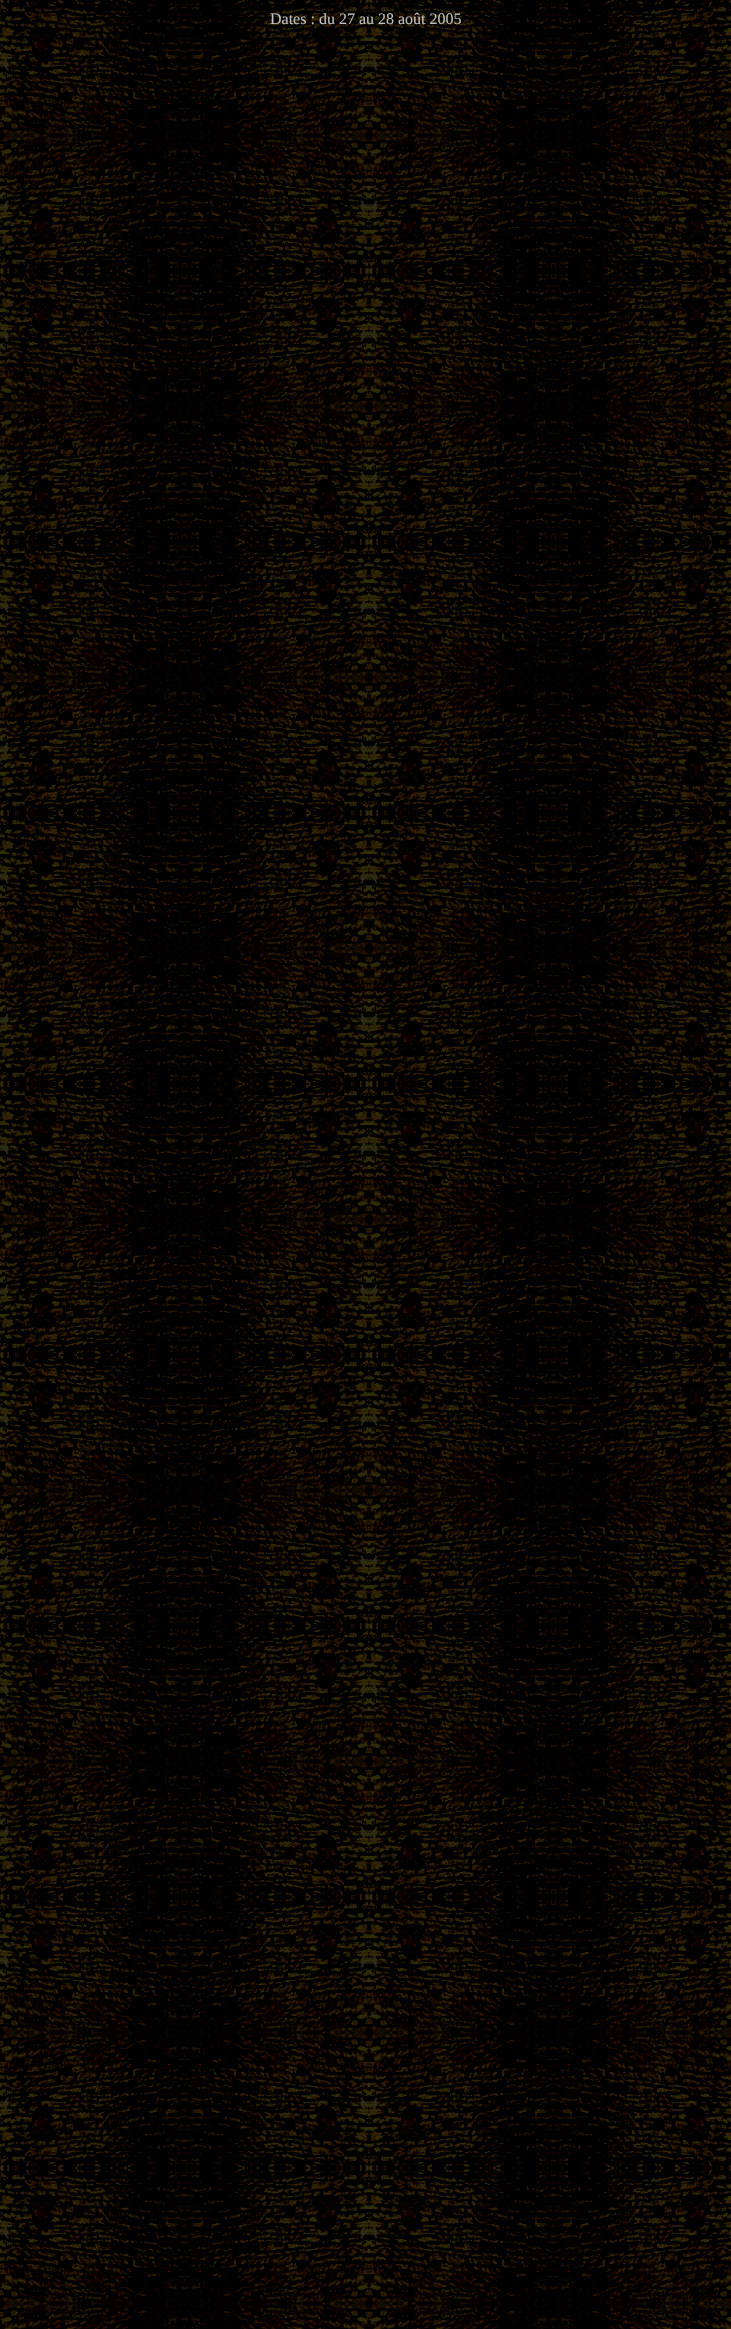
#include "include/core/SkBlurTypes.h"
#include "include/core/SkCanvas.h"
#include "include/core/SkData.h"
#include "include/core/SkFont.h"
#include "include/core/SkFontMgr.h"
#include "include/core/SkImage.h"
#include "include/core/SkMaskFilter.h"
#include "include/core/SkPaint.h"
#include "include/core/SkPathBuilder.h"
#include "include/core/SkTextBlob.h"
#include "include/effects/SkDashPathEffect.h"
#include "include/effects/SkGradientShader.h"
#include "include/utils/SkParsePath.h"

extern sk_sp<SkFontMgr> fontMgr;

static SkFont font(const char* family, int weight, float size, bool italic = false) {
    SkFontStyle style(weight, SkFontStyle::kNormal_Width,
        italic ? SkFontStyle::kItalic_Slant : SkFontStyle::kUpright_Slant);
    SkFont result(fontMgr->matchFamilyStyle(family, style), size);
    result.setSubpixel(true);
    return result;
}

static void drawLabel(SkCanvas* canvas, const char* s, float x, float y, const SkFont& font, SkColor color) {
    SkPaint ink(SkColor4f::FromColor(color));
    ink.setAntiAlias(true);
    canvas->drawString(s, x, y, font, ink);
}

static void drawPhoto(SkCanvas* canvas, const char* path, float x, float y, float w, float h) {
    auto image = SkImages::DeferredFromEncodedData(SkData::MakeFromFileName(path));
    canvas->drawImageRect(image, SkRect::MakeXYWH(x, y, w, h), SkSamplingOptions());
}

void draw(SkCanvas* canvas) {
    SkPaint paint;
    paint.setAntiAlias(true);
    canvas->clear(0xFFFFFFFF);
    drawPhoto(canvas, "assets/img1.png", 0, 0, 731, 2329);
    SkFont font1 = font("Liberation Serif", 400, 16);
    drawLabel(canvas, "Dates : du 27 au 28 août 2005", 270, 24, font1, 0xFFC0C0C0);
}
